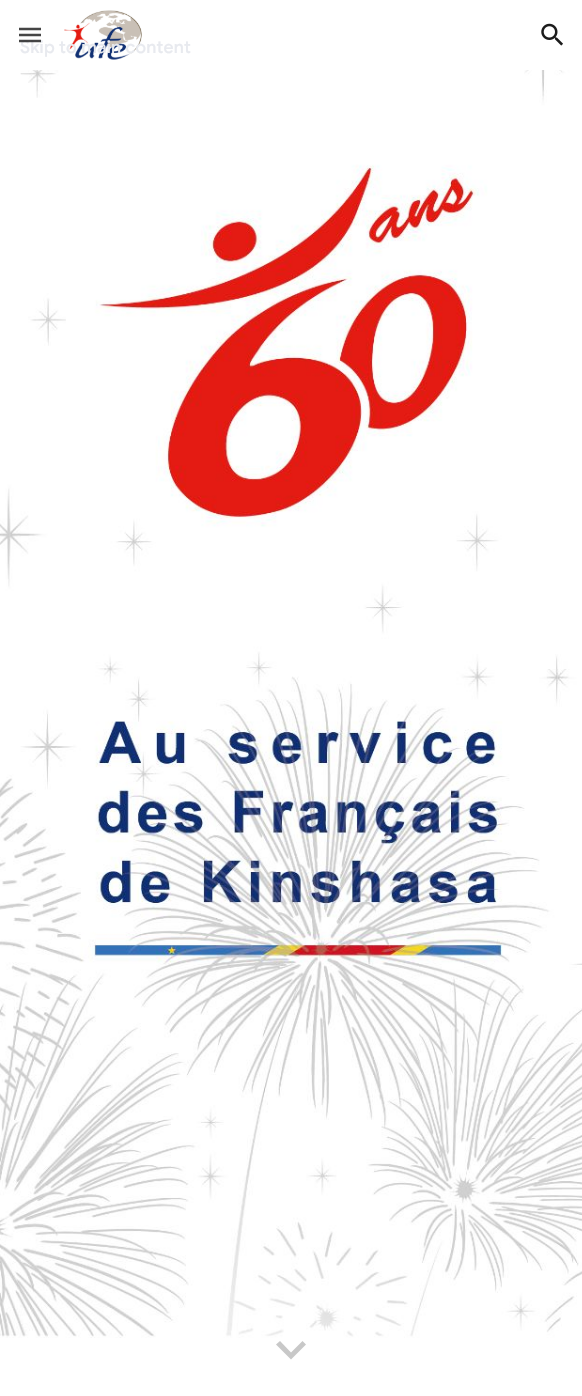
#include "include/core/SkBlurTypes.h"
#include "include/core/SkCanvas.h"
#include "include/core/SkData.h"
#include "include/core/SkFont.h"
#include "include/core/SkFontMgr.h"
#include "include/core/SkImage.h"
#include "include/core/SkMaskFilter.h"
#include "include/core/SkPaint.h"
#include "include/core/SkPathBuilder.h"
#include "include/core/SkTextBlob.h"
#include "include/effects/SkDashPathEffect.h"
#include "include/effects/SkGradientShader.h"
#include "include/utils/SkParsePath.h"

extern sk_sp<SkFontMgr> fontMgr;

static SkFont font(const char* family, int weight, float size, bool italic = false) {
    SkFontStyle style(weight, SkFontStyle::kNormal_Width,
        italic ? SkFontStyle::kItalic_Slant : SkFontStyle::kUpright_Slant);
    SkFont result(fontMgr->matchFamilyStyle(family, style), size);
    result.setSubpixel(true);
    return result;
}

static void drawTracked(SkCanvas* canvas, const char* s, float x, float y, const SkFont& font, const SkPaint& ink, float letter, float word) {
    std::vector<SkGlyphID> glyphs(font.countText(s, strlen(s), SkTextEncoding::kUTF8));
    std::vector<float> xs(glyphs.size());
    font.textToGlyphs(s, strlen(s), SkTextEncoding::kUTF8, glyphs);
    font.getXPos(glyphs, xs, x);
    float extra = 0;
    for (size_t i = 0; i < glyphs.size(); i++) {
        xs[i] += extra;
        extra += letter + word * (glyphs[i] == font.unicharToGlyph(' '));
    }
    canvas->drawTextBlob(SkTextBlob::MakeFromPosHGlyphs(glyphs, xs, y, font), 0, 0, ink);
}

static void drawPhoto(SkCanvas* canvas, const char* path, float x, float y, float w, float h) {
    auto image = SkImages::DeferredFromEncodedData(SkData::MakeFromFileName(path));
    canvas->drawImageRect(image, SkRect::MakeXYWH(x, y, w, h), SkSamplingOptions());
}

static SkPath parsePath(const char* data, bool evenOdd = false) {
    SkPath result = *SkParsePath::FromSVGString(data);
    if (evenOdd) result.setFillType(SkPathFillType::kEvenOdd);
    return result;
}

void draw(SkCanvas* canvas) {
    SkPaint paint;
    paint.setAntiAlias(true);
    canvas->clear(0xFFFFFFFF);
    paint.setStroke(true);
    paint.setStrokeWidth(2.5f);
    paint.setColor(0xFF454545);
    canvas->drawPath(parsePath("M19 29H41M19 35H41"), paint);
    drawPhoto(canvas, "assets/img1.png", 64, 10, 78, 50);
    SkFont font1 = font("Google Sans", 500, 17.5f);
    paint.setStroke(false);
    paint.setColor(0xFFE8EAEF);
    drawTracked(canvas, "Skip to main content", 20, 53, font1, paint, 0.2f, 0);
    paint.setStroke(true);
    paint.setColor(0xD11C1C1C);
    canvas->drawPath(parsePath("M19 41H41"), paint);
    drawPhoto(canvas, "assets/img2.png", 541, 23, 22, 23);
    drawPhoto(canvas, "assets/img3.png", 0, 70, 582, 1326);
    paint.setStroke(false);
    paint.setColor(0xFFC8C8C8);
    canvas->drawPath(parsePath("M280 1341L291 1352.5L302.5 1341L306 1344.5L291 1359.5L276 1344.5Z"), paint);
}
